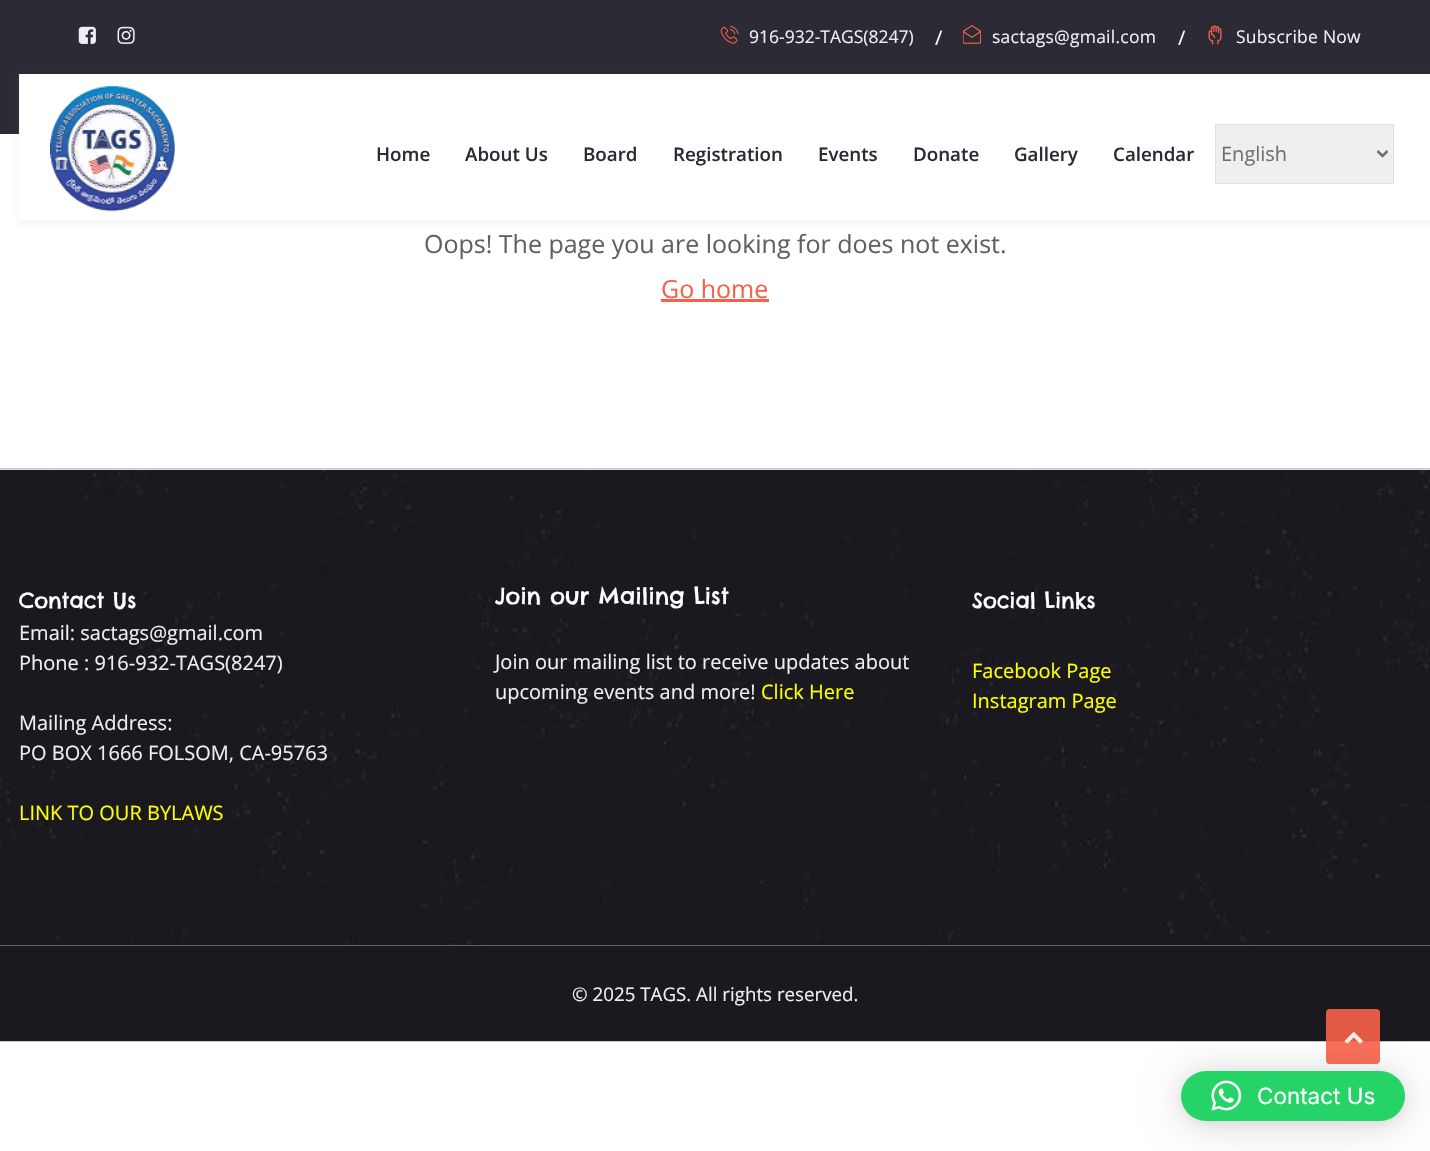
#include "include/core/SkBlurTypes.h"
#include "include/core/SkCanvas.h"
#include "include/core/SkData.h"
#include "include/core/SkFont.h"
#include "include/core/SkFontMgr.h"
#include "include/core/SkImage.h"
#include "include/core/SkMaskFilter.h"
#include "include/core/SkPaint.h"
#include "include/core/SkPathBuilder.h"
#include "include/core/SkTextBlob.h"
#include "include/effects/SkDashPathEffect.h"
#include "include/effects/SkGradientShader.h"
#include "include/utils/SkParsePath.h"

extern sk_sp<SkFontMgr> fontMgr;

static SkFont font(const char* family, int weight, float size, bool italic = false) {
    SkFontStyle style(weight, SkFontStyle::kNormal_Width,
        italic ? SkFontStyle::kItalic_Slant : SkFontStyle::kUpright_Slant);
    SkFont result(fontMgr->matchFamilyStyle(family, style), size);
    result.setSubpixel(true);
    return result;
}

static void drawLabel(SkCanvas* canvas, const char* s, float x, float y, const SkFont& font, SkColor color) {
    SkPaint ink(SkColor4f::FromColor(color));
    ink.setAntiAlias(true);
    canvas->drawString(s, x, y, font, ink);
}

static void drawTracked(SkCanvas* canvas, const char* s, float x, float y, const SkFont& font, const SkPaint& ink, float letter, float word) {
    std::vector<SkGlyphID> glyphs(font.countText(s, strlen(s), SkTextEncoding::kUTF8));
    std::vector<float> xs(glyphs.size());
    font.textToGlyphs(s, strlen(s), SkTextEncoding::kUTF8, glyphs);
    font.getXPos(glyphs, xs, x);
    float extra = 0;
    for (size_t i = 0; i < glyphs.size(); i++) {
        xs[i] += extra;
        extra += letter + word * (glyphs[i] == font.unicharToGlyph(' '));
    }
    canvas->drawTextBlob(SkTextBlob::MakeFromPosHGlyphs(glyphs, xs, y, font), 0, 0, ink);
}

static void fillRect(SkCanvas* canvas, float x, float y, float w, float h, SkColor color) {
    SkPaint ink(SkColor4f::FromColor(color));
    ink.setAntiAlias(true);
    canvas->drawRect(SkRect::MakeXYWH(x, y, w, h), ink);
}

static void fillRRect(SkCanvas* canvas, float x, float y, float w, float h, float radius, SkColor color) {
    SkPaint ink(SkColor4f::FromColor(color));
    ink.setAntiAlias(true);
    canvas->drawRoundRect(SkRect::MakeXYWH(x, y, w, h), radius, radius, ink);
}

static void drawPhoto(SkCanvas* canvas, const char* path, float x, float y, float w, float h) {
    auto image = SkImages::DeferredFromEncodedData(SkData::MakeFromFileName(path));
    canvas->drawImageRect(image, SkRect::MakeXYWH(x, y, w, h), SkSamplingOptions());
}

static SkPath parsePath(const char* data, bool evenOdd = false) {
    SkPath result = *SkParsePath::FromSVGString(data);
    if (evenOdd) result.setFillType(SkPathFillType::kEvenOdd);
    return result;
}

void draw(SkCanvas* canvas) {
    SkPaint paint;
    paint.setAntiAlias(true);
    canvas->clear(0xFFFFFFFF);
    fillRect(canvas, 0, 0, 1430, 134, 0xFF2B2A35);
    drawPhoto(canvas, "assets/img1.png", 78, 26, 18, 18);
    drawPhoto(canvas, "assets/img2.png", 117, 26, 18, 18);
    drawPhoto(canvas, "assets/img3.png", 720, 25, 19, 19);
    SkFont font1 = font("Open Sans", 400, 17.5f);
    drawLabel(canvas, "916-932-TAGS(8247)", 749, 43, font1, 0xFFEDF0F2);
    SkFont font2 = font("Open Sans", 400, 20);
    drawLabel(canvas, "/", 935, 45, font2, 0xFFFFFFFF);
    drawPhoto(canvas, "assets/img4.png", 963, 25, 18, 19);
    paint.setColor(0xFFEDF0F2);
    drawTracked(canvas, "sactags@gmail.com", 992, 43, font1, paint, 0.25f, 0);
    drawLabel(canvas, "/", 1178, 45, font2, 0xFFFFFFFF);
    drawPhoto(canvas, "assets/img5.png", 1208, 25, 14, 20);
    drawTracked(canvas, "Subscribe Now", 1236, 43, font1, paint, 0.25f, 0);
    paint.setColor(0x1A808080);
    paint.setMaskFilter(SkMaskFilter::MakeBlur(kNormal_SkBlurStyle, 4));
    canvas->drawRect(SkRect::MakeXYWH(19, 78, 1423, 146), paint);
    paint.setMaskFilter(nullptr);
    fillRect(canvas, 19, 74, 1411, 146, 0xFFFFFFFF);
    drawPhoto(canvas, "assets/img6.png", 50, 86, 125, 126);
    SkFont font3 = font("Open Sans", 600, 18.75f);
    drawLabel(canvas, "Home", 376, 161, font3, 0xFF2B2A35);
    drawLabel(canvas, "About Us", 465, 161, font3, 0xFF2B2A35);
    drawLabel(canvas, "Board", 583, 161, font3, 0xFF2B2A35);
    drawLabel(canvas, "Registration", 673, 161, font3, 0xFF2B2A35);
    drawLabel(canvas, "Events", 818, 161, font3, 0xFF2B2A35);
    drawLabel(canvas, "Donate", 913, 161, font3, 0xFF2B2A35);
    drawLabel(canvas, "Gallery", 1014, 161, font3, 0xFF2B2A35);
    drawLabel(canvas, "Calendar", 1113, 161, font3, 0xFF2B2A35);
    paint.setColor(0xFFEFEFEF);
    canvas->drawRect(SkRect::MakeXYWH(1215.5f, 124.5f, 178, 59), paint);
    paint.setStroke(true);
    paint.setStrokeWidth(1);
    paint.setColor(0xFFE0E0E0);
    canvas->drawRect(SkRect::MakeXYWH(1215.5f, 124.5f, 178, 59), paint);
    paint.setStrokeWidth(2.5f);
    paint.setColor(0xFF6F6F6F);
    canvas->drawPath(parsePath("M1377.5 151L1382.5 156L1387.5 151"), paint);
    drawLabel(canvas, "English", 1221, 161, font2, 0xFF6F6F6F);
    SkFont font4 = font("Open Sans", 400, 25);
    drawLabel(canvas, "Oops! The page you are looking for does not exist.", 424, 253, font4, 0xFF616161);
    drawLabel(canvas, "Go home", 661, 298, font4, 0xFFF86048);
    fillRect(canvas, 661, 299, 108, 3, 0xFFF86048);
    drawPhoto(canvas, "assets/img7.png", 0, 468, 1430, 574);
    fillRect(canvas, 0, 469, 1430, 1, 0xFFE0E0E0);
    fillRect(canvas, 0, 945, 1430, 1, 0xFF616161);
    SkFont font5 = font("Chelsea Market", 400, 21.25f);
    drawLabel(canvas, "Contact Us", 19, 608, font5, 0xFFFFFFFF);
    drawLabel(canvas, "Email: sactags@gmail.com", 19, 640, font2, 0xFFEDF0F2);
    drawLabel(canvas, "Phone : 916-932-TAGS(8247)", 19, 670, font2, 0xFFEDF0F2);
    drawLabel(canvas, "Mailing Address:", 19, 730, font2, 0xFFEDF0F2);
    drawLabel(canvas, "PO BOX 1666 FOLSOM, CA-95763", 19, 760, font2, 0xFFEDF0F2);
    drawLabel(canvas, "LINK TO OUR BYLAWS", 19, 820, font2, 0xFFFFFF00);
    SkFont font6 = font("Chelsea Market", 400, 22.5f);
    drawLabel(canvas, "Join our Mailing List", 495, 604, font6, 0xFFFFFFFF);
    drawLabel(canvas, "Join our mailing list to receive updates about", 495, 669, font2, 0xFFEDF0F2);
    drawLabel(canvas, "upcoming events and more!", 495, 699, font2, 0xFFEDF0F2);
    drawLabel(canvas, "Click Here", 761, 699, font2, 0xFFFFFF00);
    drawLabel(canvas, "Social Links", 972, 608, font5, 0xFFFFFFFF);
    drawLabel(canvas, "Facebook Page", 972, 678, font2, 0xFFFFFF00);
    drawLabel(canvas, "Instagram Page", 972, 708, font2, 0xFFFFFF00);
    fillRect(canvas, 50, 946, 1380, 95, 0xFF1A191F);
    SkFont font7 = font("Open Sans", 400, 18.75f);
    drawLabel(canvas, "© 2025 TAGS. All rights reserved.", 572, 1001, font7, 0xFFEDF0F2);
    fillRRect(canvas, 1326, 1009, 54, 55, 4, 0xE6F86048);
    drawPhoto(canvas, "assets/img8.png", 1344, 1032, 19, 12);
    paint.setStroke(false);
    paint.setColor(0x29000000);
    paint.setMaskFilter(SkMaskFilter::MakeBlur(kNormal_SkBlurStyle, 20));
    canvas->drawRoundRect(SkRect::MakeXYWH(1181, 1074, 224, 50), 25, 25, paint);
    paint.setMaskFilter(nullptr);
    paint.setColor(0x0F000000);
    paint.setMaskFilter(SkMaskFilter::MakeBlur(kNormal_SkBlurStyle, 4));
    canvas->drawRoundRect(SkRect::MakeXYWH(1181, 1073, 224, 50), 25, 25, paint);
    paint.setMaskFilter(nullptr);
    fillRRect(canvas, 1181, 1071, 224, 50, 25, 0xFF25D366);
    drawPhoto(canvas, "assets/img9.png", 1211, 1080, 31, 31);
    SkFont font8 = font("Inter", 400, 22.5f);
    drawLabel(canvas, "Contact Us", 1257, 1104, font8, 0xFFFFFFFF);
}
